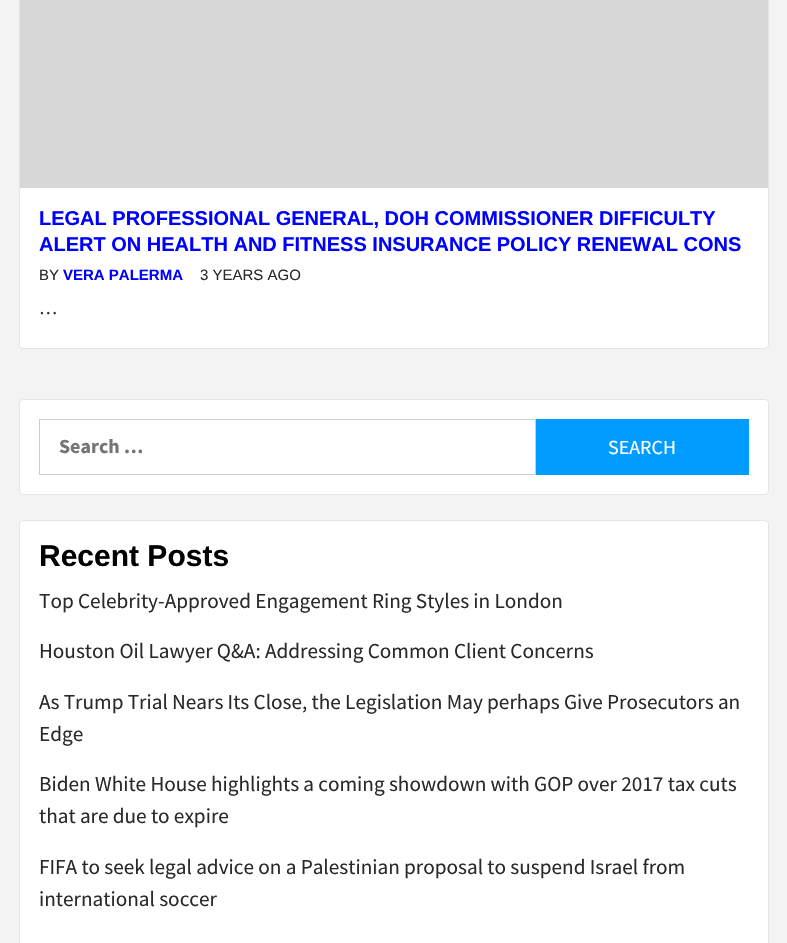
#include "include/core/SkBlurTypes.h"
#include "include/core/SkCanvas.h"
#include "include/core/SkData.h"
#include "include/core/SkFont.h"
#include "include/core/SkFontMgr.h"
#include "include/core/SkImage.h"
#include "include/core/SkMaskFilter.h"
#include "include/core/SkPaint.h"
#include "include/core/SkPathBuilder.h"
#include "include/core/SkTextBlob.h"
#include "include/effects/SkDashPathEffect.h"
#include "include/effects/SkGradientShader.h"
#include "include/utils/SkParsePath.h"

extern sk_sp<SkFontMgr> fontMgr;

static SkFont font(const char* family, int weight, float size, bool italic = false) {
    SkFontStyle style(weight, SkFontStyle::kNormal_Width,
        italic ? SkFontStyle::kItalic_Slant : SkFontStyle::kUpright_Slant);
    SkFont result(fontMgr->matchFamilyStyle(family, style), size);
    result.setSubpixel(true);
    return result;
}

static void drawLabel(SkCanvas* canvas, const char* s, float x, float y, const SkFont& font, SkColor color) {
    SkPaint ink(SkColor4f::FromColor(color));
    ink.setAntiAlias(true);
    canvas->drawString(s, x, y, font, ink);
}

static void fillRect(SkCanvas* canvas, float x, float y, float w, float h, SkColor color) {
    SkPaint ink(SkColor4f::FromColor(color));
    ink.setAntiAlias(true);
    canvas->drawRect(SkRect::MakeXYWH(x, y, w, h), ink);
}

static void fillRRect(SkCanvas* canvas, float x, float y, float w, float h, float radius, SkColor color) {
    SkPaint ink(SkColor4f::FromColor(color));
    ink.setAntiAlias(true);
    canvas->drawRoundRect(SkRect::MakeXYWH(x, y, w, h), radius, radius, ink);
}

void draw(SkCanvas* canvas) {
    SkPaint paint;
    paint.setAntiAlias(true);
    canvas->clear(0xFFF3F3F3);
    fillRRect(canvas, 19, -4, 750, 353, 4, 0xFFFFFFFF);
    paint.setStroke(true);
    paint.setStrokeWidth(1);
    paint.setColor(0x1A000101);
    canvas->drawRoundRect(SkRect::MakeXYWH(19.5f, -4.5f, 749, 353), 3.5f, 3.5f, paint);
    fillRect(canvas, 20, 0, 748, 188, 0xFFD7D7D7);
    SkFont font1 = font("Liberation Sans", 700, 20);
    drawLabel(canvas, "LEGAL PROFESSIONAL GENERAL, DOH COMMISSIONER DIFFICULTY", 39, 225, font1, 0xFF0000FF);
    drawLabel(canvas, "ALERT ON HEALTH AND FITNESS INSURANCE POLICY RENEWAL CONS", 39, 251, font1, 0xFF0000FF);
    SkFont font2 = font("Liberation Sans", 400, 15);
    drawLabel(canvas, "BY", 39, 280, font2, 0xFF2A2A2A);
    SkFont font3 = font("Liberation Sans", 700, 15);
    drawLabel(canvas, "VERA PALERMA", 63, 280, font3, 0xFF0000FF);
    drawLabel(canvas, "3 YEARS AGO", 200, 280, font2, 0xFF2A2A2A);
    SkFont font4 = font("Source Sans Pro", 400, 19);
    drawLabel(canvas, "…", 39, 314, font4, 0xFF2A2A2A);
    fillRRect(canvas, 19, 399, 750, 96, 4, 0xFFFFFFFF);
    canvas->drawRoundRect(SkRect::MakeXYWH(19.5f, 399.5f, 749, 95), 3.5f, 3.5f, paint);
    paint.setColor(0xFFCCCCCC);
    canvas->drawRect(SkRect::MakeXYWH(39.5f, 419.5f, 496, 55), paint);
    SkFont font5 = font("Source Sans Pro", 700, 20);
    drawLabel(canvas, "Search …", 59, 453, font5, 0xFF757575);
    fillRect(canvas, 536, 419, 213, 56, 0xFF009CFF);
    SkFont font6 = font("Source Sans Pro", 400, 20);
    drawLabel(canvas, "SEARCH", 608, 454, font6, 0xFFFFFFFF);
    fillRRect(canvas, 19, 520, 750, 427, 4, 0xFFFFFFFF);
    paint.setColor(0x1A000101);
    canvas->drawRoundRect(SkRect::MakeXYWH(19.5f, 520.5f, 749, 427), 3.5f, 3.5f, paint);
    SkFont font7 = font("Liberation Sans", 700, 30);
    drawLabel(canvas, "Recent Posts", 39, 566, font7, 0xFF000000);
    SkFont font8 = font("Source Sans Pro", 400, 21.25f);
    drawLabel(canvas, "Top Celebrity-Approved Engagement Ring Styles in London", 39, 608, font8, 0xFF2A2A2A);
    drawLabel(canvas, "Houston Oil Lawyer Q&A: Addressing Common Client Concerns", 39, 658, font8, 0xFF2A2A2A);
    drawLabel(canvas, "As Trump Trial Nears Its Close, the Legislation May perhaps Give Prosecutors an", 39, 709, font8, 0xFF2A2A2A);
    drawLabel(canvas, "Edge", 39, 741, font8, 0xFF2A2A2A);
    drawLabel(canvas, "Biden White House highlights a coming showdown with GOP over 2017 tax cuts", 39, 791, font8, 0xFF2A2A2A);
    drawLabel(canvas, "that are due to expire", 39, 823, font8, 0xFF2A2A2A);
    drawLabel(canvas, "FIFA to seek legal advice on a Palestinian proposal to suspend Israel from", 39, 874, font8, 0xFF2A2A2A);
    drawLabel(canvas, "international soccer", 39, 906, font8, 0xFF2A2A2A);
}
